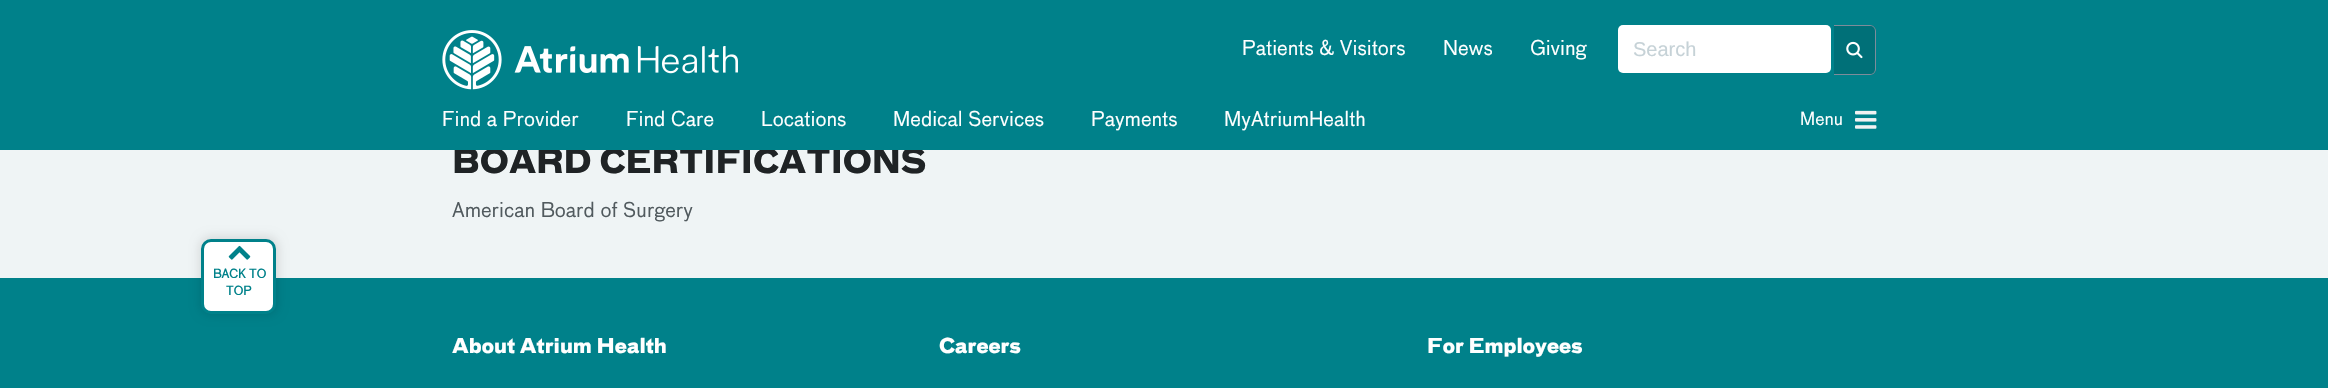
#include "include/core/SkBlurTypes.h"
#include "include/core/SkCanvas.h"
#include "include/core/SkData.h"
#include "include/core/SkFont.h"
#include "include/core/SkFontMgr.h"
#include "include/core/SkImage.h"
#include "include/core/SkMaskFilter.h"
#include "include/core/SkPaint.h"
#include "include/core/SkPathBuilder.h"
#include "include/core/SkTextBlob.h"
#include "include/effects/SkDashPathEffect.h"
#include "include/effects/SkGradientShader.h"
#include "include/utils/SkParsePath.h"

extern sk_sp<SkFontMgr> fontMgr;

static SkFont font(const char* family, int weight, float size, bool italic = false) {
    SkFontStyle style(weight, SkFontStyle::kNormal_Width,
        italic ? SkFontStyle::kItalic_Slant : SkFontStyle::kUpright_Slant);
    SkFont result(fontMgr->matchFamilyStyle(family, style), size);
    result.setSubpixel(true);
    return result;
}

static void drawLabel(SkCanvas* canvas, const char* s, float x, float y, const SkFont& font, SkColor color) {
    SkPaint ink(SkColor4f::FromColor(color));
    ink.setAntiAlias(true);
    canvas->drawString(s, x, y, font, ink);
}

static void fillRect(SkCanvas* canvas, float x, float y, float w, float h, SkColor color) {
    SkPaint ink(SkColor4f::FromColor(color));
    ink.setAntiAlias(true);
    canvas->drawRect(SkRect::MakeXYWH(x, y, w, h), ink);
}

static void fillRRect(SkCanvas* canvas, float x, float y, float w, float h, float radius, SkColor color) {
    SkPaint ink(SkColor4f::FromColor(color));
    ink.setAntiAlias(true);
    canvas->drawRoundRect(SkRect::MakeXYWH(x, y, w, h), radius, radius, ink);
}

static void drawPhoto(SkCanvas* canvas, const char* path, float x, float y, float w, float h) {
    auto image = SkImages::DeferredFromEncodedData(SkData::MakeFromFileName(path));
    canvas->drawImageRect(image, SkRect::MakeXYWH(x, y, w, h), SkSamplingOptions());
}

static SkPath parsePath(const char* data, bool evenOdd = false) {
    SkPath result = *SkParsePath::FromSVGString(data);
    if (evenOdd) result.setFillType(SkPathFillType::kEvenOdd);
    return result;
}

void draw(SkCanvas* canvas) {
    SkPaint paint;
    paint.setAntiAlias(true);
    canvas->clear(0xFFEFF4F5);
    fillRect(canvas, 0, 278, 2328, 110, 0xFF00818A);
    paint.setColor(0x1A000000);
    paint.setMaskFilter(SkMaskFilter::MakeBlur(kNormal_SkBlurStyle, 5));
    canvas->drawRoundRect(SkRect::MakeXYWH(199, 236, 80, 80), 13, 13, paint);
    paint.setMaskFilter(nullptr);
    paint.setColor(0xFFFFFFFF);
    canvas->drawRoundRect(SkRect::MakeXYWH(202.5f, 240.5f, 72, 72), 8.5f, 8.5f, paint);
    paint.setStroke(true);
    paint.setStrokeWidth(3);
    paint.setColor(0xFF00818A);
    canvas->drawRoundRect(SkRect::MakeXYWH(202.5f, 240.5f, 72, 72), 8.5f, 8.5f, paint);
    drawPhoto(canvas, "assets/img1.png", 228, 245, 23, 15);
    SkFont font1 = font("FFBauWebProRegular", 700, 12);
    drawLabel(canvas, "BACK TO", 213, 278, font1, 0xFF00818A);
    drawLabel(canvas, "TOP", 226, 295, font1, 0xFF00818A);
    SkFont font2 = font("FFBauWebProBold", 400, 32.5f);
    drawLabel(canvas, "BOARD CERTIFICATIONS", 452, 173, font2, 0xFF1F2325);
    fillRect(canvas, 0, 0, 2328, 150, 0xFF00818A);
    drawPhoto(canvas, "assets/img2.png", 442, 30, 296, 60);
    SkFont font3 = font("FFBauWebProRegular", 400, 20);
    drawLabel(canvas, "Patients & Visitors", 1242, 55, font3, 0xFFFFFFFF);
    drawLabel(canvas, "News", 1443, 55, font3, 0xFFFFFFFF);
    drawLabel(canvas, "Giving", 1530, 55, font3, 0xFFFFFFFF);
    fillRRect(canvas, 1618, 25, 213, 48, 5, 0xFFFFFFFF);
    SkFont font4 = font("Liberation Sans", 400, 20);
    drawLabel(canvas, "Search", 1633, 56, font4, 0xFFC6D2D7);
    paint.setStroke(false);
    paint.setColor(0xFF007078);
    canvas->drawPath(parsePath("M1834 25H1870C1873.5 25 1876 27.5 1876 31V69C1876 72.5 1873.5 75 1870 75H1834Z"), paint);
    paint.setColor(0xFF7E8C9A);
    canvas->drawPath(parsePath("M1834 25H1870C1873 25 1876 28 1876 31V69C1876 72 1873 75 1870 75H1834ZM1834 26H1870C1873 26 1875 28 1875 31V69C1875 72 1873 74 1870 74H1834Z", true), paint);
    drawPhoto(canvas, "assets/img3.png", 1846, 41, 17, 18);
    drawLabel(canvas, "Find a Provider", 442, 126, font3, 0xFFFFFFFF);
    drawLabel(canvas, "Find Care", 626, 126, font3, 0xFFFFFFFF);
    drawLabel(canvas, "Locations", 761, 126, font3, 0xFFFFFFFF);
    drawLabel(canvas, "Medical Services", 893, 126, font3, 0xFFFFFFFF);
    drawLabel(canvas, "Payments", 1091, 126, font3, 0xFFFFFFFF);
    drawLabel(canvas, "MyAtriumHealth", 1224, 126, font3, 0xFFFFFFFF);
    SkFont font5 = font("FFBauWebProRegular", 400, 17.5f);
    drawLabel(canvas, "Menu", 1800, 125, font5, 0xFFFFFFFF);
    drawPhoto(canvas, "assets/img4.png", 1855, 110, 22, 19);
    drawLabel(canvas, "American Board of Surgery", 452, 217, font3, 0xFF515A5E);
    SkFont font6 = font("FFBauWebProBold", 400, 20);
    drawLabel(canvas, "About Atrium Health", 452, 353, font6, 0xFFFFFFFF);
    drawLabel(canvas, "Careers", 939, 353, font6, 0xFFFFFFFF);
    drawLabel(canvas, "For Employees", 1427, 353, font6, 0xFFFFFFFF);
}
